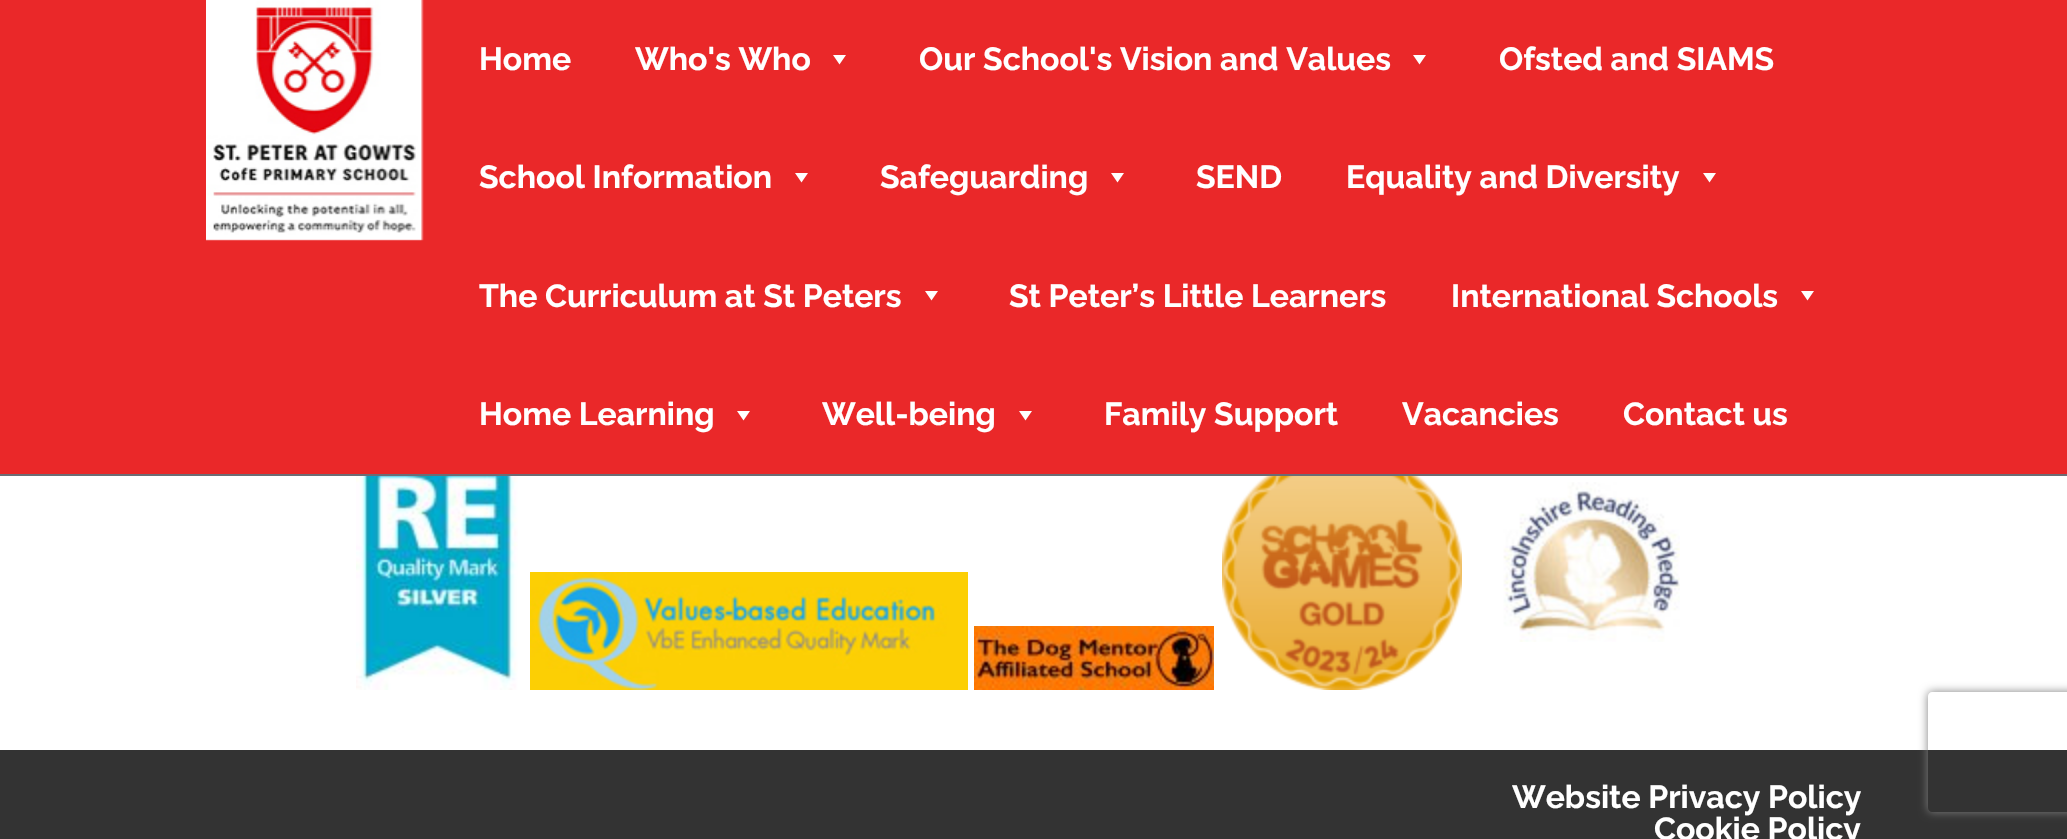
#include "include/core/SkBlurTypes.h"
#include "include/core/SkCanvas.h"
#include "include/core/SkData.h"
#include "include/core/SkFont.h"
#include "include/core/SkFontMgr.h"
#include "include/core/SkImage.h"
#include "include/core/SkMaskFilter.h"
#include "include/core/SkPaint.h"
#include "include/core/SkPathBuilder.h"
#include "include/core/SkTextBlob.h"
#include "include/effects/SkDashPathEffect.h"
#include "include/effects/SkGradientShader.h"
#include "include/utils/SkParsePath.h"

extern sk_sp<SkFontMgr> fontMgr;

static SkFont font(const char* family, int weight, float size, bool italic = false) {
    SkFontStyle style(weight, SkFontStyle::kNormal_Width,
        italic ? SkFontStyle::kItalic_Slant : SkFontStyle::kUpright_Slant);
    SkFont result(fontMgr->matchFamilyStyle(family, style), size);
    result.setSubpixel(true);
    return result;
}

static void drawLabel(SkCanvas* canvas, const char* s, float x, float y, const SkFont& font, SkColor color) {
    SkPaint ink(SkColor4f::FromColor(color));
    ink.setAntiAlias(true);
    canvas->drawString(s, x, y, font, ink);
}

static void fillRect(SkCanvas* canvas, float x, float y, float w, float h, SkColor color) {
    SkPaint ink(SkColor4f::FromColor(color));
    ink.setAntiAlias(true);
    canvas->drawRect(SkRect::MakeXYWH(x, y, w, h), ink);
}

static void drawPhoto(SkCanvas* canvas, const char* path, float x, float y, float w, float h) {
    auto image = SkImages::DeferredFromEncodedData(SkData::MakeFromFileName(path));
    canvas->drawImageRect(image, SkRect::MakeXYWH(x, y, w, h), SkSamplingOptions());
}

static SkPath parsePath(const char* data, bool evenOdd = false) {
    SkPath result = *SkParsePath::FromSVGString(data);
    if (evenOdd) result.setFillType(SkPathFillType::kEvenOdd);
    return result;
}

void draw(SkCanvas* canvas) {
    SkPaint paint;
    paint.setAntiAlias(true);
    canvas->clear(0xFFFFFFFF);
    fillRect(canvas, 0, 0, 2067, 474, 0xFFEA2829);
    fillRect(canvas, 0, 474, 2067, 2, 0xFF6D6C74);
    drawPhoto(canvas, "assets/img1.png", 206, 0, 218, 241);
    SkFont font1 = font("Raleway", 700, 32);
    drawLabel(canvas, "Home", 479, 70, font1, 0xFFFFFFFF);
    drawLabel(canvas, "Who's Who", 635, 70, font1, 0xFFFFFFFF);
    paint.setColor(0xFFFFFFFF);
    canvas->drawPath(parsePath("M846 55L839.5 64.5L833 55Z"), paint);
    drawLabel(canvas, "Our School's Vision and Values", 919, 70, font1, 0xFFFFFFFF);
    canvas->drawPath(parsePath("M1426 55L1419.5 64.5L1413 55Z"), paint);
    drawLabel(canvas, "Ofsted and SIAMS", 1499, 70, font1, 0xFFFFFFFF);
    drawLabel(canvas, "School Information", 479, 188, font1, 0xFFFFFFFF);
    canvas->drawPath(parsePath("M808 173L801.5 182.5L795 173Z"), paint);
    drawLabel(canvas, "Safeguarding", 880, 188, font1, 0xFFFFFFFF);
    canvas->drawPath(parsePath("M1124 173L1117.5 182.5L1111 173Z"), paint);
    drawLabel(canvas, "SEND", 1196, 188, font1, 0xFFFFFFFF);
    drawLabel(canvas, "Equality and Diversity", 1346, 188, font1, 0xFFFFFFFF);
    canvas->drawPath(parsePath("M1716 173L1709.5 182.5L1703 173Z"), paint);
    drawLabel(canvas, "The Curriculum at St Peters", 479, 307, font1, 0xFFFFFFFF);
    canvas->drawPath(parsePath("M938 291L931.5 300.5L925 291Z"), paint);
    drawLabel(canvas, "St Peter’s Little Learners", 1009, 307, font1, 0xFFFFFFFF);
    drawLabel(canvas, "International Schools", 1451, 307, font1, 0xFFFFFFFF);
    canvas->drawPath(parsePath("M1814 291L1807.5 300.5L1801 291Z"), paint);
    drawLabel(canvas, "Home Learning", 479, 425, font1, 0xFFFFFFFF);
    canvas->drawPath(parsePath("M750 411L743.5 420.5L737 411Z"), paint);
    drawLabel(canvas, "Well-being", 822, 425, font1, 0xFFFFFFFF);
    canvas->drawPath(parsePath("M1032 411L1025.5 420.5L1019 411Z"), paint);
    drawLabel(canvas, "Family Support", 1104, 425, font1, 0xFFFFFFFF);
    drawLabel(canvas, "Vacancies", 1402, 425, font1, 0xFFFFFFFF);
    drawLabel(canvas, "Contact us", 1623, 425, font1, 0xFFFFFFFF);
    drawPhoto(canvas, "assets/img2.png", 356, 476, 162, 214);
    drawPhoto(canvas, "assets/img3.png", 530, 572, 438, 118);
    drawPhoto(canvas, "assets/img4.png", 974, 626, 240, 64);
    drawPhoto(canvas, "assets/img5.png", 1222, 476, 240, 214);
    drawPhoto(canvas, "assets/img6.png", 1503, 482, 177, 160);
    fillRect(canvas, 0, 750, 2067, 89, 0xFF333333);
    drawLabel(canvas, "Website Privacy Policy", 1512, 808, font1, 0xFFFFFFFF);
    drawLabel(canvas, "Cookie Policy", 1654, 840, font1, 0xFFFFFFFF);
    canvas->save();
    canvas->clipPath(parsePath("M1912 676H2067V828H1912ZM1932 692H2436C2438 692 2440 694 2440 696V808C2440 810 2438 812 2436 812H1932C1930 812 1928 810 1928 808V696C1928 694 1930 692 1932 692Z", true), true);
    paint.setColor(0xFF808080);
    paint.setMaskFilter(SkMaskFilter::MakeBlur(kNormal_SkBlurStyle, 5));
    canvas->drawRoundRect(SkRect::MakeXYWH(1928, 692, 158, 120), 4, 4, paint);
    paint.setMaskFilter(nullptr);
    canvas->restore();
}
